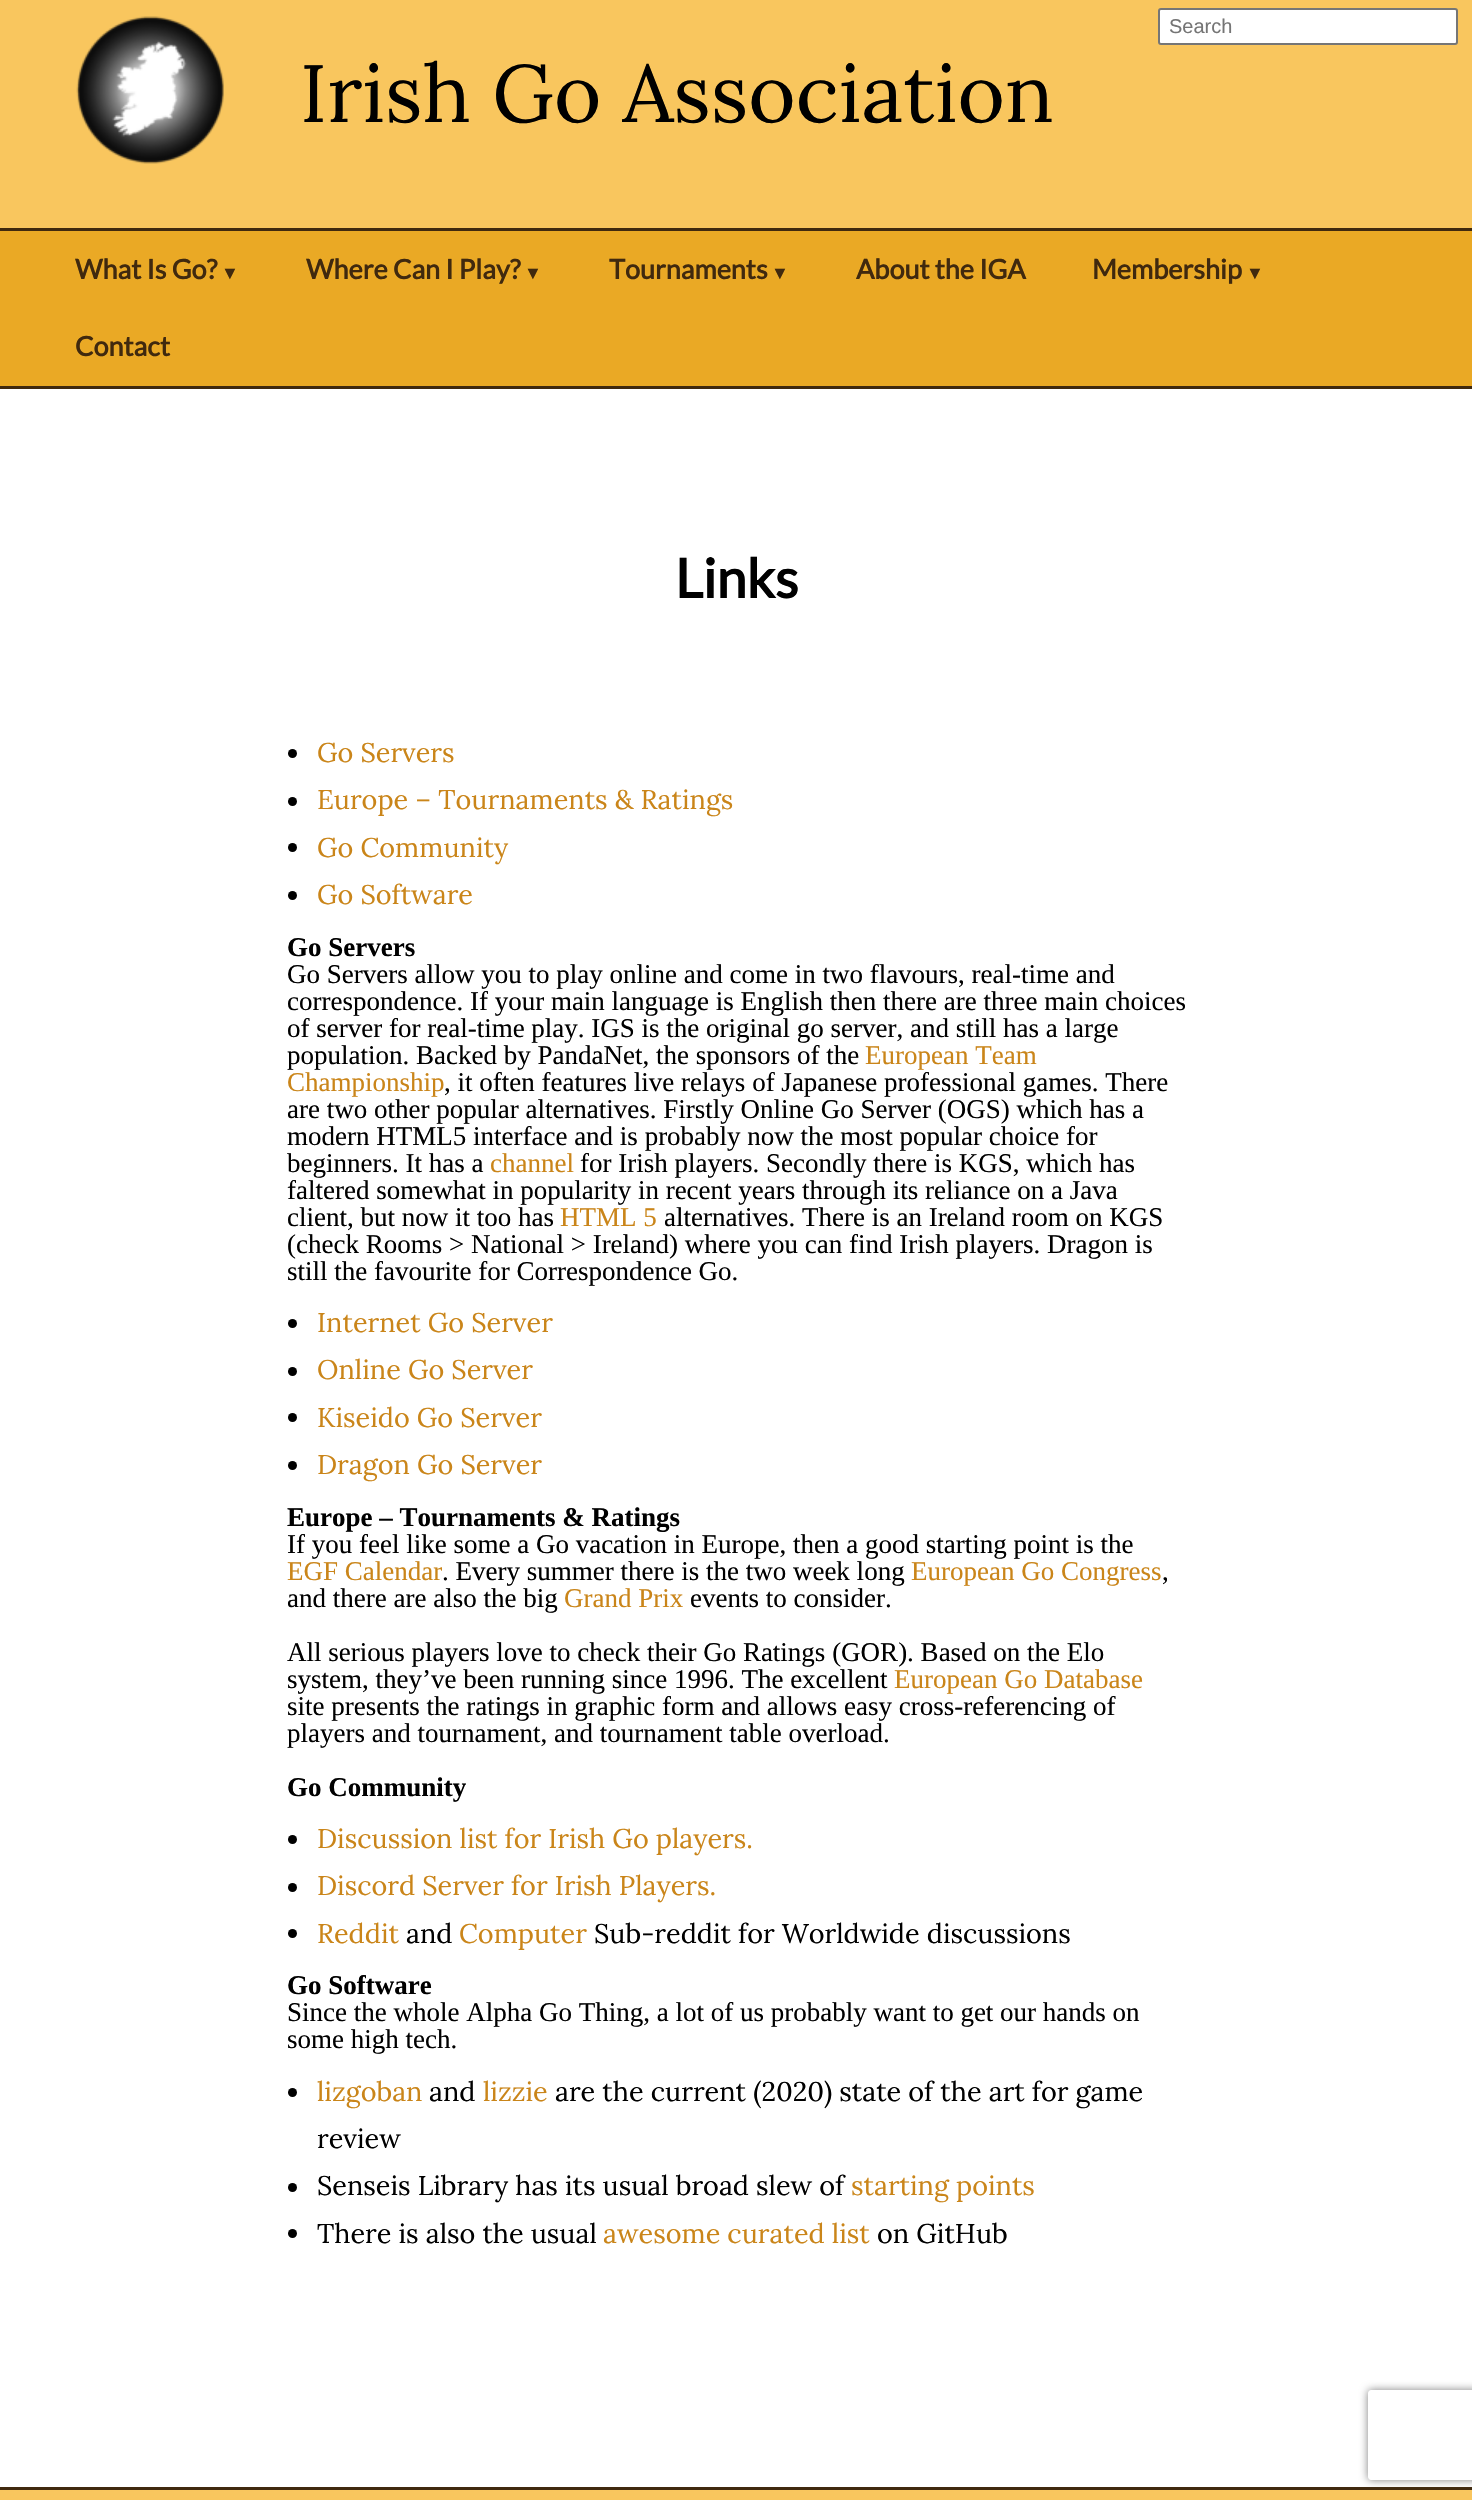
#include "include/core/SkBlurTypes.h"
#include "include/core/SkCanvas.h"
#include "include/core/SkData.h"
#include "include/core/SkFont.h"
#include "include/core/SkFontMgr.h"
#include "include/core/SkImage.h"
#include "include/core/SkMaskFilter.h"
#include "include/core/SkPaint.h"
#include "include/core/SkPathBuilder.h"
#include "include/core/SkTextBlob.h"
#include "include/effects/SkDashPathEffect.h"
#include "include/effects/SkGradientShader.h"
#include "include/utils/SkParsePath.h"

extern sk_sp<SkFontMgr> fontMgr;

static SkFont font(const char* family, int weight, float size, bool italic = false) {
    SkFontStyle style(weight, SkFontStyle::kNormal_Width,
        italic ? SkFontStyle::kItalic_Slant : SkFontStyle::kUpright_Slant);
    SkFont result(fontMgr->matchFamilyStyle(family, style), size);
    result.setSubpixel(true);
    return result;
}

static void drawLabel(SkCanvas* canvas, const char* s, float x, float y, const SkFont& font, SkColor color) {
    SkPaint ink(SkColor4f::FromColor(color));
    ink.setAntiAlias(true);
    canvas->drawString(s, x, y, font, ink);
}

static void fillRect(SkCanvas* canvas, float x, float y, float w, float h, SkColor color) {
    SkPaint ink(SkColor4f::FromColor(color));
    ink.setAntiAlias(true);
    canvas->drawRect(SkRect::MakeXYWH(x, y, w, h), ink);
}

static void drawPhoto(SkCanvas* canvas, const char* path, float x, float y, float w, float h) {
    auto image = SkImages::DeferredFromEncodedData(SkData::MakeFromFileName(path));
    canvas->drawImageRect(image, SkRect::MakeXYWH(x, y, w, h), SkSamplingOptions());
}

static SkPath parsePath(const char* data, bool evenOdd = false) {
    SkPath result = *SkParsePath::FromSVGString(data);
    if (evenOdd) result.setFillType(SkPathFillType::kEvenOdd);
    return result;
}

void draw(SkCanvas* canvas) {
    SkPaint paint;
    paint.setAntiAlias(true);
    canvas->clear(0xFFFFFFFF);
    fillRect(canvas, 0, 0, 1472, 228, 0xFFF9C65E);
    drawPhoto(canvas, "assets/img1.png", 76, 16, 148, 148);
    paint.setColor(0xFFFFFFFF);
    canvas->drawRoundRect(SkRect::MakeXYWH(1159, 9, 298, 35), 2, 2, paint);
    paint.setStroke(true);
    paint.setStrokeWidth(2);
    paint.setColor(0xFF767676);
    canvas->drawRoundRect(SkRect::MakeXYWH(1159, 9, 298, 35), 2, 2, paint);
    SkFont font1 = font("Liberation Sans", 400, 20);
    drawLabel(canvas, "Search", 1169, 33, font1, 0xFF757575);
    SkFont font2 = font("Lora", 400, 81);
    drawLabel(canvas, "Irish Go Association", 300, 122, font2, 0xFF000000);
    fillRect(canvas, 0, 231, 1472, 155, 0xFFEAA925);
    fillRect(canvas, 0, 228, 1472, 3, 0xFF40290E);
    fillRect(canvas, 0, 386, 1472, 3, 0xFF40290E);
    SkFont font3 = font("Lato", 700, 27);
    drawLabel(canvas, "What Is Go?", 75, 279, font3, 0xFF40290E);
    SkFont font4 = font("Liberation Sans", 700, 18);
    drawLabel(canvas, "▼", 221, 279, font4, 0xFF40290E);
    drawLabel(canvas, "Where Can I Play?", 306, 279, font3, 0xFF40290E);
    drawLabel(canvas, "▼", 524, 279, font4, 0xFF40290E);
    drawLabel(canvas, "Tournaments", 609, 279, font3, 0xFF40290E);
    drawLabel(canvas, "▼", 771, 279, font4, 0xFF40290E);
    drawLabel(canvas, "About the IGA", 856, 279, font3, 0xFF40290E);
    drawLabel(canvas, "Membership", 1092, 279, font3, 0xFF40290E);
    drawLabel(canvas, "▼", 1246, 279, font4, 0xFF40290E);
    drawLabel(canvas, "Contact", 75, 356, font3, 0xFF40290E);
    SkFont font5 = font("Lato", 700, 54);
    drawLabel(canvas, "Links", 675, 598, font5, 0xFF000000);
    paint.setStroke(false);
    paint.setColor(0xFF000000);
    canvas->drawCircle(292.5f, 753.5f, 4.5f, paint);
    SkFont font6 = font("Lora", 400, 27);
    drawLabel(canvas, "Go Servers", 317, 762, font6, 0xFFCA8519);
    canvas->drawCircle(292.5f, 801.5f, 4.5f, paint);
    drawLabel(canvas, "Europe – Tournaments & Ratings", 317, 809, font6, 0xFFCA8519);
    canvas->drawCircle(292.5f, 847.5f, 4.5f, paint);
    drawLabel(canvas, "Go Community", 317, 857, font6, 0xFFCA8519);
    canvas->drawCircle(292.5f, 895.5f, 4.5f, paint);
    drawLabel(canvas, "Go Software", 317, 904, font6, 0xFFCA8519);
    SkFont font7 = font("Liberation Serif", 700, 27);
    drawLabel(canvas, "Go Servers", 287, 956, font7, 0xFF000000);
    SkFont font8 = font("Liberation Serif", 400, 27);
    drawLabel(canvas, "Go Servers allow you to play online and come in two flavours, real-time and", 287, 983, font8, 0xFF000000);
    drawLabel(canvas, "correspondence. If your main language is English then there are three main choices", 287, 1010, font8, 0xFF000000);
    drawLabel(canvas, "of server for real-time play. IGS is the original go server, and still has a large", 287, 1037, font8, 0xFF000000);
    drawLabel(canvas, "population. Backed by PandaNet, the sponsors of the", 287, 1064, font8, 0xFF000000);
    drawLabel(canvas, "European Team", 865, 1064, font8, 0xFFCA8519);
    drawLabel(canvas, "Championship", 287, 1091, font8, 0xFFCA8519);
    drawLabel(canvas, ", it often features live relays of Japanese professional games. There", 444, 1091, font8, 0xFF000000);
    drawLabel(canvas, "are two other popular alternatives. Firstly Online Go Server (OGS) which has a", 287, 1118, font8, 0xFF000000);
    drawLabel(canvas, "modern HTML5 interface and is probably now the most popular choice for", 287, 1145, font8, 0xFF000000);
    drawLabel(canvas, "beginners. It has a", 287, 1172, font8, 0xFF000000);
    drawLabel(canvas, "channel", 490, 1172, font8, 0xFFCA8519);
    drawLabel(canvas, "for Irish players. Secondly there is KGS, which has", 580, 1172, font8, 0xFF000000);
    drawLabel(canvas, "faltered somewhat in popularity in recent years through its reliance on a Java", 287, 1199, font8, 0xFF000000);
    drawLabel(canvas, "client, but now it too has", 287, 1226, font8, 0xFF000000);
    drawLabel(canvas, "HTML 5", 560, 1226, font8, 0xFFCA8519);
    drawLabel(canvas, "alternatives. There is an Ireland room on KGS", 664, 1226, font8, 0xFF000000);
    drawLabel(canvas, "(check Rooms > National > Ireland) where you can find Irish players. Dragon is", 287, 1253, font8, 0xFF000000);
    drawLabel(canvas, "still the favourite for Correspondence Go.", 287, 1280, font8, 0xFF000000);
    canvas->drawCircle(292.5f, 1323.5f, 4.5f, paint);
    drawLabel(canvas, "Internet Go Server", 317, 1332, font6, 0xFFCA8519);
    canvas->drawCircle(292.5f, 1371.5f, 4.5f, paint);
    drawLabel(canvas, "Online Go Server", 317, 1379, font6, 0xFFCA8519);
    canvas->drawCircle(292.5f, 1417.5f, 4.5f, paint);
    drawLabel(canvas, "Kiseido Go Server", 317, 1427, font6, 0xFFCA8519);
    canvas->drawCircle(292.5f, 1465.5f, 4.5f, paint);
    drawLabel(canvas, "Dragon Go Server", 317, 1474, font6, 0xFFCA8519);
    drawLabel(canvas, "Europe – Tournaments & Ratings", 287, 1526, font7, 0xFF000000);
    drawLabel(canvas, "If you feel like some a Go vacation in Europe, then a good starting point is the", 287, 1553, font8, 0xFF000000);
    drawLabel(canvas, "EGF Calendar", 287, 1580, font8, 0xFFCA8519);
    drawLabel(canvas, ". Every summer there is the two week long", 442, 1580, font8, 0xFF000000);
    drawLabel(canvas, "European Go Congress", 911, 1580, font8, 0xFFCA8519);
    drawLabel(canvas, ",", 1162, 1580, font8, 0xFF000000);
    drawLabel(canvas, "and there are also the big", 287, 1607, font8, 0xFF000000);
    drawLabel(canvas, "Grand Prix", 564, 1607, font8, 0xFFCA8519);
    drawLabel(canvas, "events to consider.", 690, 1607, font8, 0xFF000000);
    drawLabel(canvas, "All serious players love to check their Go Ratings (GOR). Based on the Elo", 287, 1661, font8, 0xFF000000);
    drawLabel(canvas, "system, they’ve been running since 1996. The excellent", 287, 1688, font8, 0xFF000000);
    drawLabel(canvas, "European Go Database", 894, 1688, font8, 0xFFCA8519);
    drawLabel(canvas, "site presents the ratings in graphic form and allows easy cross-referencing of", 287, 1715, font8, 0xFF000000);
    drawLabel(canvas, "players and tournament, and tournament table overload.", 287, 1742, font8, 0xFF000000);
    drawLabel(canvas, "Go Community", 287, 1796, font7, 0xFF000000);
    canvas->drawCircle(292.5f, 1839.5f, 4.5f, paint);
    drawLabel(canvas, "Discussion list for Irish Go players.", 317, 1848, font6, 0xFFCA8519);
    canvas->drawCircle(292.5f, 1887.5f, 4.5f, paint);
    drawLabel(canvas, "Discord Server for Irish Players.", 317, 1895, font6, 0xFFCA8519);
    canvas->drawCircle(292.5f, 1933.5f, 4.5f, paint);
    drawLabel(canvas, "Reddit", 317, 1943, font6, 0xFFCA8519);
    drawLabel(canvas, "and", 406, 1943, font6, 0xFF000000);
    drawLabel(canvas, "Computer", 459, 1943, font6, 0xFFCA8519);
    drawLabel(canvas, "Sub-reddit for Worldwide discussions", 594, 1943, font6, 0xFF000000);
    drawLabel(canvas, "Go Software", 287, 1994, font7, 0xFF000000);
    drawLabel(canvas, "Since the whole Alpha Go Thing, a lot of us probably want to get our hands on", 287, 2021, font8, 0xFF000000);
    drawLabel(canvas, "some high tech.", 287, 2048, font8, 0xFF000000);
    canvas->drawCircle(292.5f, 2092.5f, 4.5f, paint);
    drawLabel(canvas, "lizgoban", 317, 2101, font6, 0xFFCA8519);
    drawLabel(canvas, "and", 429, 2101, font6, 0xFF000000);
    drawLabel(canvas, "lizzie", 483, 2101, font6, 0xFFCA8519);
    drawLabel(canvas, "are the current (2020) state of the art for game", 555, 2101, font6, 0xFF000000);
    drawLabel(canvas, "review", 317, 2148, font6, 0xFF000000);
    canvas->drawCircle(292.5f, 2187.5f, 4.5f, paint);
    drawLabel(canvas, "Senseis Library has its usual broad slew of", 317, 2195, font6, 0xFF000000);
    drawLabel(canvas, "starting points", 851, 2195, font6, 0xFFCA8519);
    canvas->drawCircle(292.5f, 2233.5f, 4.5f, paint);
    drawLabel(canvas, "There is also the usual", 317, 2243, font6, 0xFF000000);
    drawLabel(canvas, "awesome curated list", 603, 2243, font6, 0xFFCA8519);
    drawLabel(canvas, "on GitHub", 877, 2243, font6, 0xFF000000);
    fillRect(canvas, 0, 2490, 1472, 10, 0xFFF9C65E);
    fillRect(canvas, 0, 2487, 1472, 3, 0xFF40290E);
    canvas->save();
    canvas->clipPath(parsePath("M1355 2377H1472V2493H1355ZM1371 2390H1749C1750.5 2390 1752 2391.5 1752 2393V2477C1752 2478.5 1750.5 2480 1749 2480H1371C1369.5 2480 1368 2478.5 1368 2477V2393C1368 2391.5 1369.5 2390 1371 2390Z", true), true);
    paint.setColor(0xFF808080);
    paint.setMaskFilter(SkMaskFilter::MakeBlur(kNormal_SkBlurStyle, 4));
    canvas->drawRoundRect(SkRect::MakeXYWH(1368, 2390, 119, 90), 3, 3, paint);
    paint.setMaskFilter(nullptr);
    canvas->restore();
}
